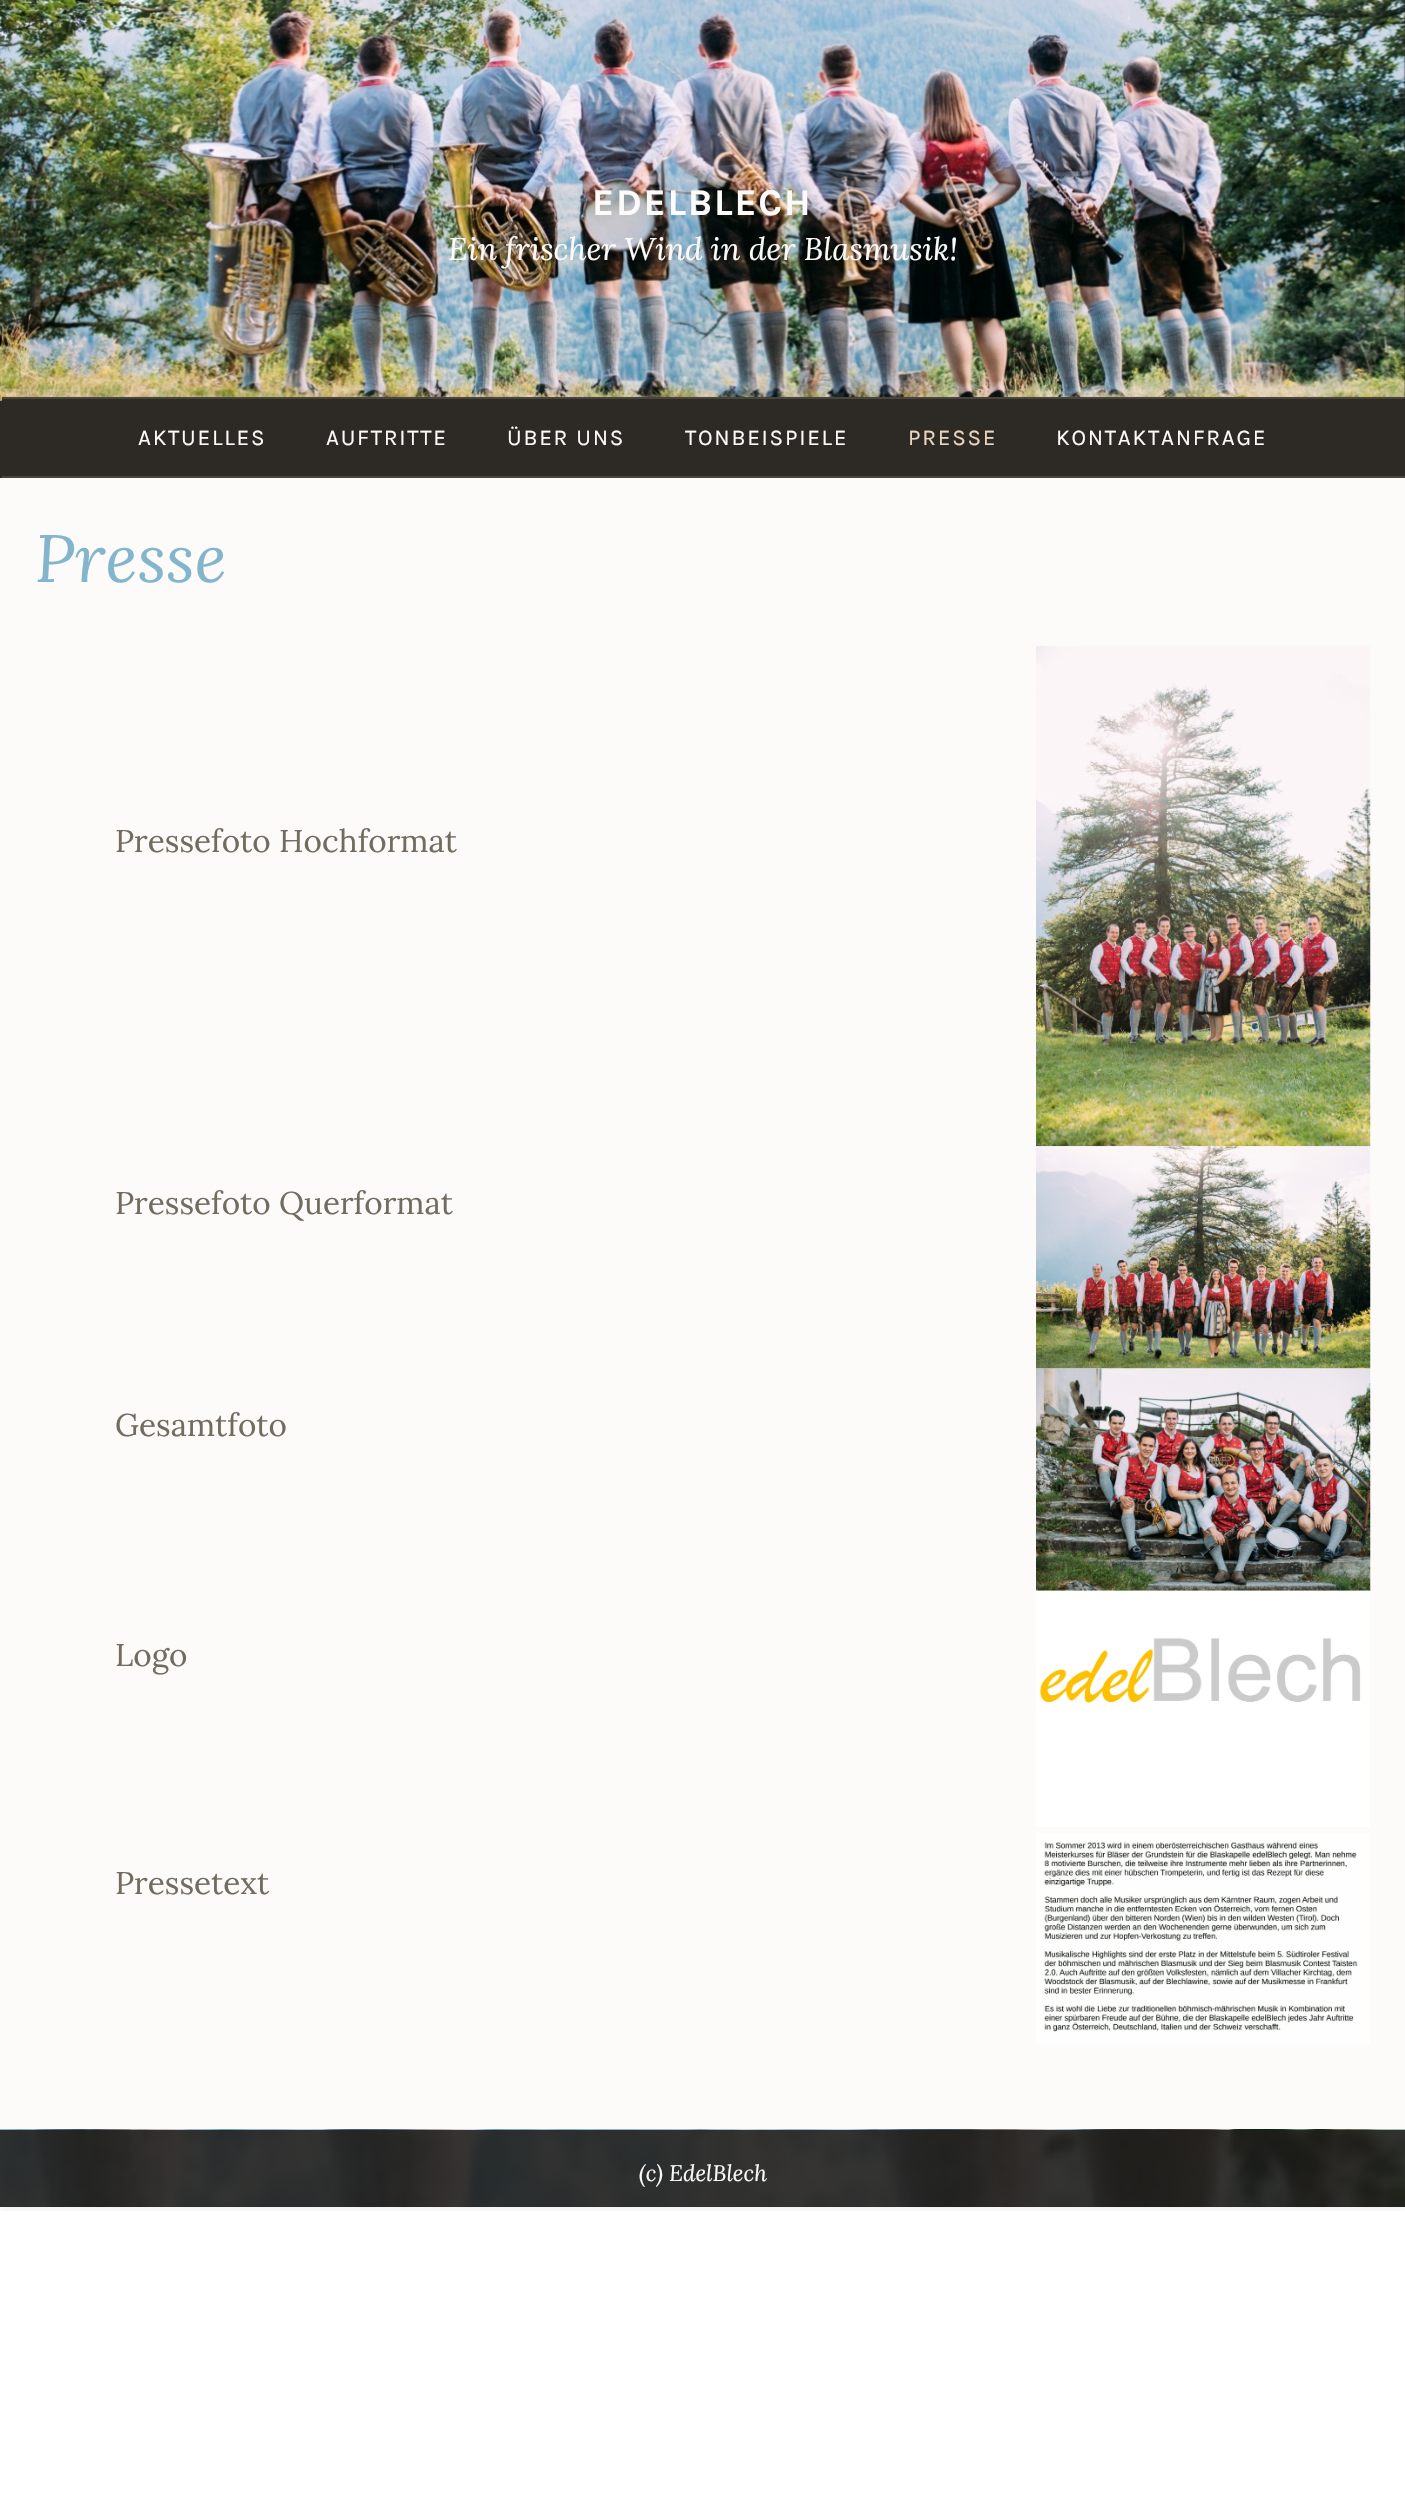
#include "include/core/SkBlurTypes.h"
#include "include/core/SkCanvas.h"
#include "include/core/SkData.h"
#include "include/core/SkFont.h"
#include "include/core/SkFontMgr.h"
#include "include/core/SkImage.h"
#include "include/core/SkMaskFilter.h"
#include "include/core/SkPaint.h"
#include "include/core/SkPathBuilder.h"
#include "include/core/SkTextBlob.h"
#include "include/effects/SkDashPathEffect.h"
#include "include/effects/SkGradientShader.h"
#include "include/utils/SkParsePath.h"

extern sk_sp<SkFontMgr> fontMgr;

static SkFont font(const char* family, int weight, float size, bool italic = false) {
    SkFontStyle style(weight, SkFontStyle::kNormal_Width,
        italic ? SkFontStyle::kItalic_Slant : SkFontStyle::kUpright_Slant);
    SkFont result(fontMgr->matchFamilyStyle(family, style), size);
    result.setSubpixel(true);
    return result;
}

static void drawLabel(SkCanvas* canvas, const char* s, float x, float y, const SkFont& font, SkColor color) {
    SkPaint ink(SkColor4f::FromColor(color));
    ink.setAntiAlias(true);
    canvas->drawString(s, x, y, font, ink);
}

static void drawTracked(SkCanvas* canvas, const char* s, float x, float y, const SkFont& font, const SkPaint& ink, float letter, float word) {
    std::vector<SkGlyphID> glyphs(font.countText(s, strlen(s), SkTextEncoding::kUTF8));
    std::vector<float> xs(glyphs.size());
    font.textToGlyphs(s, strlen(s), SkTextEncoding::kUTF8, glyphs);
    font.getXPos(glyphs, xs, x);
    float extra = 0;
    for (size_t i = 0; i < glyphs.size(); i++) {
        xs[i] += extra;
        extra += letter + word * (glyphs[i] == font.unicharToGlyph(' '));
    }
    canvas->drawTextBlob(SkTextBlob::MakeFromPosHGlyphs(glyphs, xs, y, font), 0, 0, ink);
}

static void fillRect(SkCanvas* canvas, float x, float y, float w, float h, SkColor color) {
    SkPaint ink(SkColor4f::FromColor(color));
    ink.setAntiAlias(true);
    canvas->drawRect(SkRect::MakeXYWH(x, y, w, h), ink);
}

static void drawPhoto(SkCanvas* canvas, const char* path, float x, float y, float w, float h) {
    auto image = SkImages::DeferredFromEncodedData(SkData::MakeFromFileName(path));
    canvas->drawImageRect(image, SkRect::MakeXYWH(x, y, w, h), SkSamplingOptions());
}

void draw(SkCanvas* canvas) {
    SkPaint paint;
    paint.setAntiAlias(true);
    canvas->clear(0xFFFFFFFF);
    canvas->save();
    canvas->clipRect(SkRect::MakeXYWH(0, 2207, 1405, 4));
    paint.setColor(0x1A000000);
    paint.setMaskFilter(SkMaskFilter::MakeBlur(kNormal_SkBlurStyle, 5));
    canvas->drawRect(SkRect::MakeXYWH(0, 0, 1405, 2207), paint);
    paint.setMaskFilter(nullptr);
    canvas->restore();
    fillRect(canvas, 0, 478, 1405, 1651, 0xE6FCFBF9);
    fillRect(canvas, 0, 0, 1405, 478, 0xFF2D2A26);
    drawPhoto(canvas, "assets/img1.png", 0, 0, 1405, 401);
    SkFont font1 = font("Karla", 700, 37.75f);
    paint.setColor(0xFFFCFBF9);
    drawTracked(canvas, "EDELBLECH", 592, 215, font1, paint, 1.75f, 0);
    SkFont font2 = font("Lora", 400, 31.5f, true);
    drawLabel(canvas, "Ein frischer Wind in der Blasmusik!", 448, 260, font2, 0xFFFCFBF9);
    fillRect(canvas, 2, 399, 1403, 2, 0xFF2D2A26);
    fillRect(canvas, 2, 397, 1403, 2, 0xFF49443D);
    fillRect(canvas, 2, 476, 1403, 2, 0xFF49443D);
    SkFont font3 = font("Karla", 400, 22.5f);
    drawTracked(canvas, "AKTUELLES", 138, 445, font3, paint, 1.75f, 0);
    drawTracked(canvas, "AUFTRITTE", 326, 445, font3, paint, 1.75f, 0);
    drawTracked(canvas, "ÜBER UNS", 507, 445, font3, paint, 1.75f, 0);
    drawTracked(canvas, "TONBEISPIELE", 685, 445, font3, paint, 1.75f, 0);
    paint.setColor(0xFFE9D5C0);
    drawTracked(canvas, "PRESSE", 908, 445, font3, paint, 1.75f, 0);
    paint.setColor(0xFFFCFBF9);
    drawTracked(canvas, "KONTAKTANFRAGE", 1056, 445, font3, paint, 1.75f, 0);
    SkFont font4 = font("Lora", 400, 67, true);
    drawLabel(canvas, "Presse", 35, 582, font4, 0xFF83B6CC);
    SkFont font5 = font("Lora", 400, 31.5f);
    drawLabel(canvas, "Pressefoto Hochformat", 115, 852, font5, 0xFF726B60);
    drawPhoto(canvas, "assets/img2.png", 1036, 645, 335, 502);
    drawLabel(canvas, "Pressefoto Querformat", 115, 1214, font5, 0xFF726B60);
    drawPhoto(canvas, "assets/img3.png", 1036, 1146, 335, 223);
    drawLabel(canvas, "Gesamtfoto", 115, 1436, font5, 0xFF726B60);
    drawPhoto(canvas, "assets/img4.png", 1036, 1368, 335, 223);
    drawLabel(canvas, "Logo", 115, 1666, font5, 0xFF726B60);
    drawPhoto(canvas, "assets/img5.png", 1036, 1590, 334, 237);
    drawLabel(canvas, "Pressetext", 115, 1894, font5, 0xFF726B60);
    drawPhoto(canvas, "assets/img6.png", 1036, 1833, 334, 211);
    drawPhoto(canvas, "assets/img7.png", 0, 2129, 1405, 78);
    SkFont font6 = font("Lora", 400, 22.5f, true);
    drawLabel(canvas, "(c) EdelBlech", 639, 2181, font6, 0xFFFCFBF9);
}
